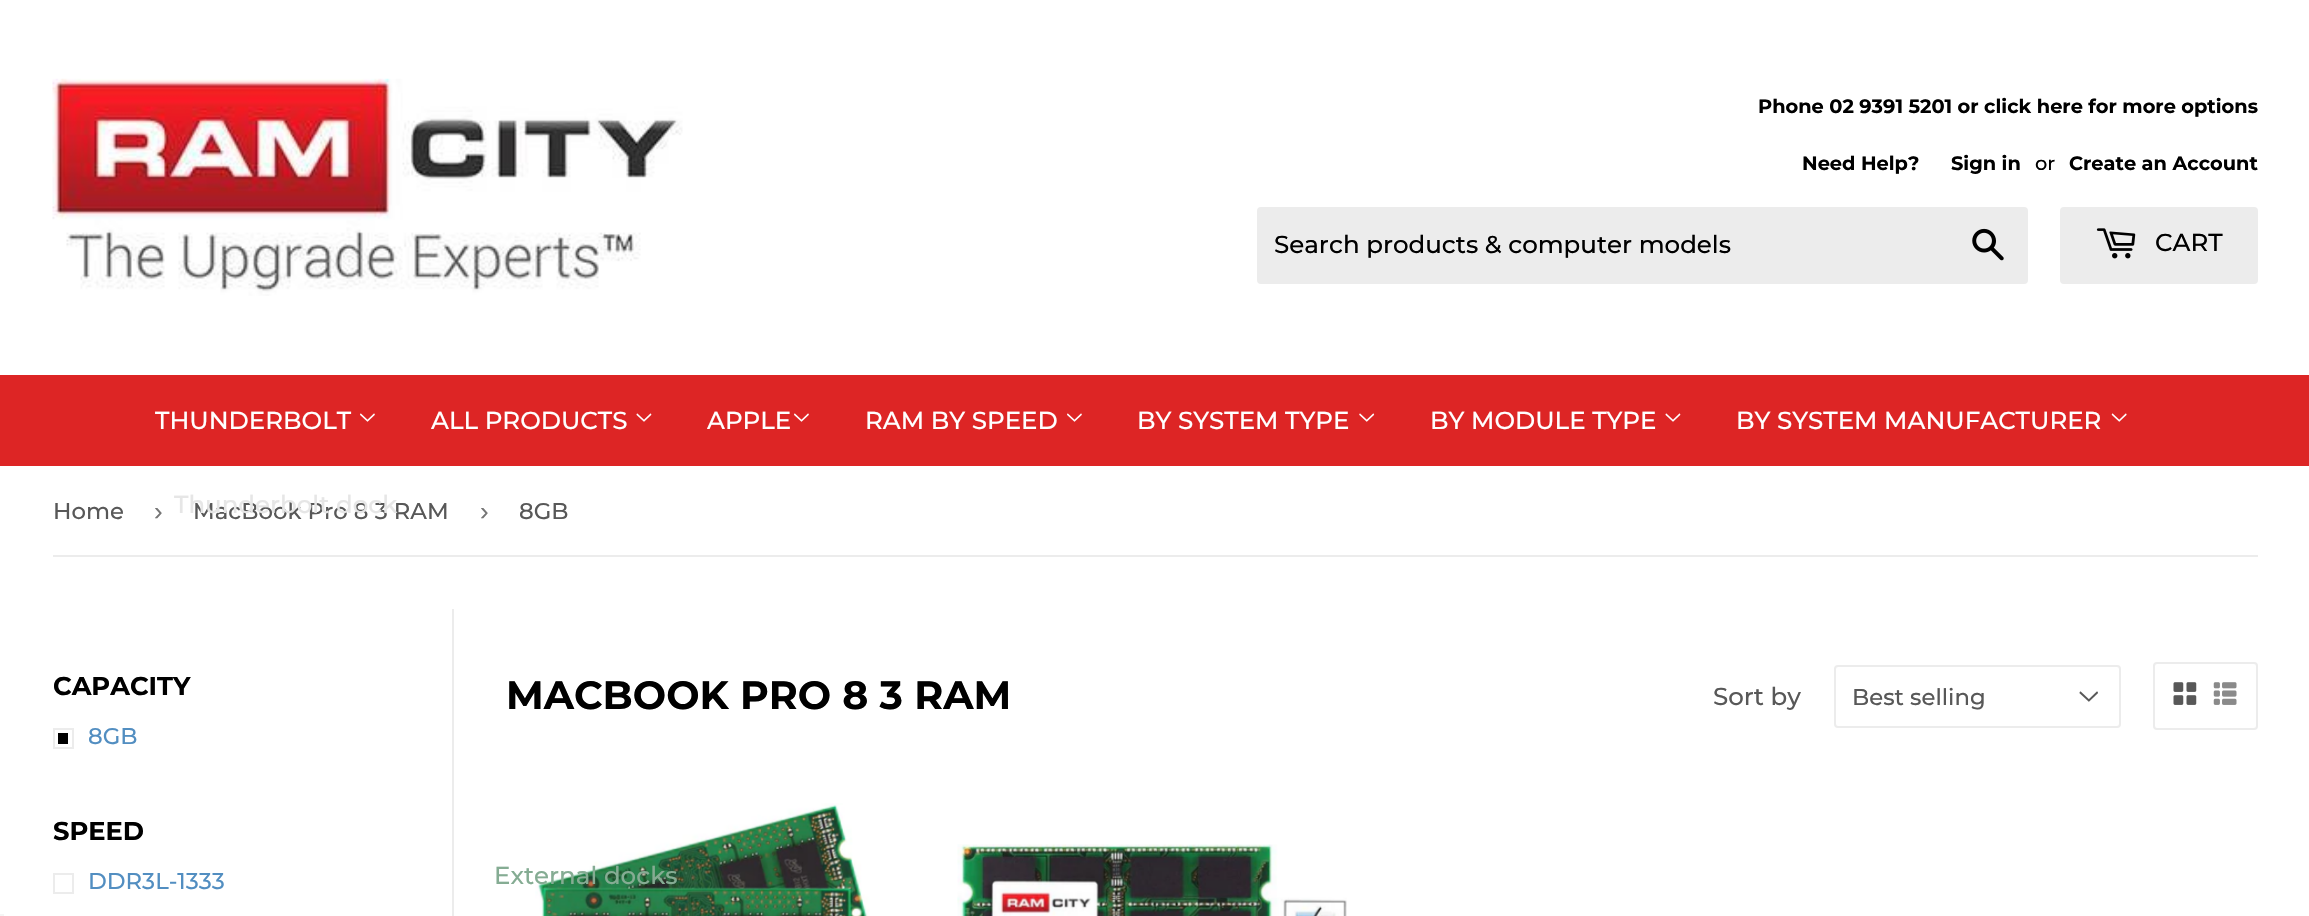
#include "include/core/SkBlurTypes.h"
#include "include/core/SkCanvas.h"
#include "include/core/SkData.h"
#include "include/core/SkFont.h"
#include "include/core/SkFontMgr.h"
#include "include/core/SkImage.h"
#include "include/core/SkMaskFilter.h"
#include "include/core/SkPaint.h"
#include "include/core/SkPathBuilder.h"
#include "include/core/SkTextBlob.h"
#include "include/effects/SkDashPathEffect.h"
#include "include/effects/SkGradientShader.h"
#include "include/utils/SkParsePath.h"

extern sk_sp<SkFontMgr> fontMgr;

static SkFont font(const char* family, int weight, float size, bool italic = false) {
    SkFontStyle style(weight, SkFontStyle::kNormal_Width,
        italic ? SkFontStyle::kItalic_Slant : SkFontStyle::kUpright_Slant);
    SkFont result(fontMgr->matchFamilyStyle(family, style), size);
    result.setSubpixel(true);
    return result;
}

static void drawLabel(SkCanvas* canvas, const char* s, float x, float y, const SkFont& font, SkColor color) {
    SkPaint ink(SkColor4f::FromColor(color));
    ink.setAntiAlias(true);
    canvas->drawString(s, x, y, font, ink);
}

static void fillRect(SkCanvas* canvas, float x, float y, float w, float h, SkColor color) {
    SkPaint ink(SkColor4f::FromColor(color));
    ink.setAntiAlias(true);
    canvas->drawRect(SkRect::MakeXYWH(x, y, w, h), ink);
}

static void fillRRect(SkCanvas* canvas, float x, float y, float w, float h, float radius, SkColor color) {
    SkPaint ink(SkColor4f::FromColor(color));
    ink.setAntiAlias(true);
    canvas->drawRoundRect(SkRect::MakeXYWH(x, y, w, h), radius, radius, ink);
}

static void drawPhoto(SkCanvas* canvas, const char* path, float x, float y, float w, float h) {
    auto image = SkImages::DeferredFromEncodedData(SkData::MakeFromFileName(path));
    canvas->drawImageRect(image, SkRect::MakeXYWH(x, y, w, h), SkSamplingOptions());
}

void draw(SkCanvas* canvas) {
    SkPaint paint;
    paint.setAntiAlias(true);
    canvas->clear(0xFFFFFFFF);
    drawPhoto(canvas, "assets/img1.png", 52, 78, 631, 218);
    SkFont font1 = font("Montserrat", 700, 19.35f);
    drawLabel(canvas, "Phone 02 9391 5201 or click here for more options", 1758, 113, font1, 0xFF000000);
    drawLabel(canvas, "Need Help?", 1802, 170, font1, 0xFF000000);
    drawLabel(canvas, "Sign in", 1951, 170, font1, 0xFF000000);
    SkFont font2 = font("Montserrat", 500, 19.35f);
    drawLabel(canvas, "or", 2035, 170, font2, 0xFF000000);
    drawLabel(canvas, "Create an Account", 2069, 170, font1, 0xFF000000);
    fillRRect(canvas, 1257, 207, 771, 77, 4, 0xFFECECEC);
    SkFont font3 = font("Montserrat", 500, 24.5f);
    drawLabel(canvas, "Search products & computer models", 1274, 253, font3, 0xFF000000);
    drawPhoto(canvas, "assets/img2.png", 1972, 228, 32, 33);
    fillRRect(canvas, 2060, 207, 198, 77, 4, 0xFFECECEC);
    drawPhoto(canvas, "assets/img3.png", 2096, 228, 40, 31);
    drawLabel(canvas, "CART", 2155, 251, font3, 0xFF000000);
    fillRect(canvas, 0, 375, 2309, 91, 0xFFDD2525);
    drawLabel(canvas, "THUNDERBOLT", 155, 429, font3, 0xFFFFFFFF);
    drawPhoto(canvas, "assets/img4.png", 360, 413, 15, 9);
    SkFont font4 = font("Montserrat", 500, 22.75f);
    drawLabel(canvas, "MacBook Pro 8 3 RAM", 193, 519, font4, 0xFF585858);
    drawLabel(canvas, "Thunderbolt dock", 174, 513, font3, 0xFFE6E6E6);
    drawLabel(canvas, "ALL PRODUCTS", 431, 429, font3, 0xFFFFFFFF);
    drawPhoto(canvas, "assets/img5.png", 636, 413, 16, 9);
    drawPhoto(canvas, "assets/img11.png", 535, 803, 335, 113);
    drawLabel(canvas, "External docks", 494, 884, font3, 0xFF85AC93);
    drawLabel(canvas, "APPLE", 707, 429, font3, 0xFFFFFFFF);
    drawPhoto(canvas, "assets/img4.png", 794, 413, 15, 9);
    drawLabel(canvas, "RAM BY SPEED", 865, 429, font3, 0xFFFFFFFF);
    drawPhoto(canvas, "assets/img4.png", 1067, 413, 15, 9);
    drawLabel(canvas, "BY SYSTEM TYPE", 1137, 429, font3, 0xFFFFFFFF);
    drawPhoto(canvas, "assets/img6.png", 1359, 413, 16, 9);
    drawLabel(canvas, "BY MODULE TYPE", 1430, 429, font3, 0xFFFFFFFF);
    drawPhoto(canvas, "assets/img5.png", 1665, 413, 16, 9);
    drawLabel(canvas, "BY SYSTEM MANUFACTURER", 1736, 429, font3, 0xFFFFFFFF);
    drawPhoto(canvas, "assets/img7.png", 2111, 413, 16, 9);
    fillRect(canvas, 53, 555, 2205, 2, 0xFFECECEC);
    drawLabel(canvas, "Home", 53, 519, font4, 0xFF585858);
    SkFont font5 = font("Liberation Sans", 400, 26);
    drawLabel(canvas, "›", 154, 520, font5, 0xFF767676);
    drawLabel(canvas, "›", 480, 520, font5, 0xFF767676);
    drawLabel(canvas, "8GB", 519, 519, font4, 0xFF585858);
    SkFont font6 = font("Montserrat", 700, 25.75f);
    drawLabel(canvas, "CAPACITY", 53, 695, font6, 0xFF000000);
    paint.setStroke(true);
    paint.setStrokeWidth(2);
    paint.setColor(0xFFECECEC);
    canvas->drawRect(SkRect::MakeXYWH(54, 729, 19, 19), paint);
    drawLabel(canvas, "8GB", 88, 744, font4, 0xFF528EC1);
    fillRect(canvas, 58, 733, 10, 11, 0xFF000000);
    drawLabel(canvas, "SPEED", 53, 840, font6, 0xFF000000);
    canvas->drawRect(SkRect::MakeXYWH(54, 874, 19, 19), paint);
    drawLabel(canvas, "DDR3L-1333", 88, 889, font4, 0xFF528EC1);
    fillRect(canvas, 452, 609, 2, 307, 0xFFECECEC);
    SkFont font7 = font("Montserrat", 700, 39.5f);
    drawLabel(canvas, "MACBOOK PRO 8 3 RAM", 506, 709, font7, 0xFF000000);
    drawLabel(canvas, "Sort by", 1713, 705, font3, 0xFF585858);
    drawPhoto(canvas, "assets/img8.png", 2079, 691, 19, 11);
    canvas->drawRoundRect(SkRect::MakeXYWH(1835, 666, 285, 61), 3, 3, paint);
    drawLabel(canvas, "Best selling", 1852, 705, font4, 0xFF585858);
    canvas->drawRoundRect(SkRect::MakeXYWH(2154, 663, 103, 66), 3, 3, paint);
    drawPhoto(canvas, "assets/img9.png", 2173, 682, 24, 23);
    drawPhoto(canvas, "assets/img10.png", 2213, 682, 24, 23);
    drawPhoto(canvas, "assets/img12.png", 957, 844, 390, 72);
    fillRect(canvas, 0, 914, 4, 2, 0xFFF5F5F5);
}
